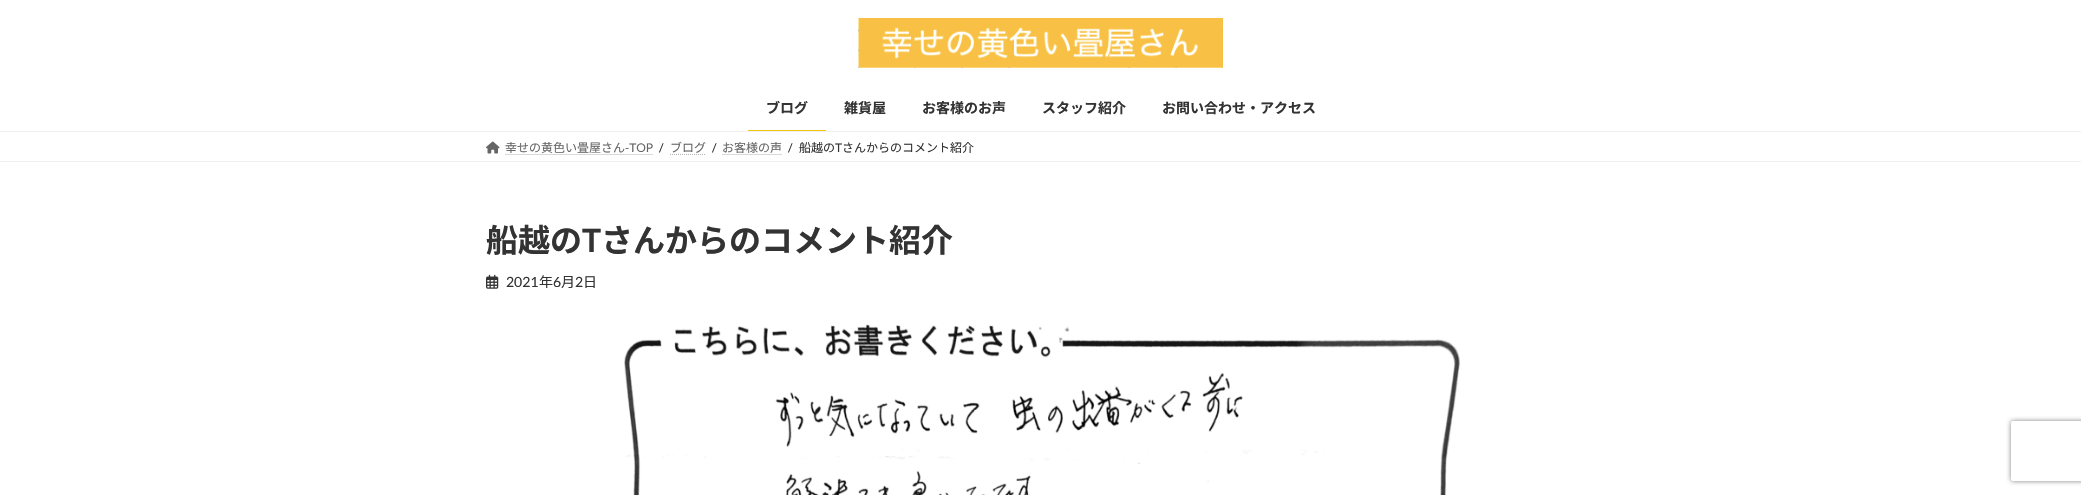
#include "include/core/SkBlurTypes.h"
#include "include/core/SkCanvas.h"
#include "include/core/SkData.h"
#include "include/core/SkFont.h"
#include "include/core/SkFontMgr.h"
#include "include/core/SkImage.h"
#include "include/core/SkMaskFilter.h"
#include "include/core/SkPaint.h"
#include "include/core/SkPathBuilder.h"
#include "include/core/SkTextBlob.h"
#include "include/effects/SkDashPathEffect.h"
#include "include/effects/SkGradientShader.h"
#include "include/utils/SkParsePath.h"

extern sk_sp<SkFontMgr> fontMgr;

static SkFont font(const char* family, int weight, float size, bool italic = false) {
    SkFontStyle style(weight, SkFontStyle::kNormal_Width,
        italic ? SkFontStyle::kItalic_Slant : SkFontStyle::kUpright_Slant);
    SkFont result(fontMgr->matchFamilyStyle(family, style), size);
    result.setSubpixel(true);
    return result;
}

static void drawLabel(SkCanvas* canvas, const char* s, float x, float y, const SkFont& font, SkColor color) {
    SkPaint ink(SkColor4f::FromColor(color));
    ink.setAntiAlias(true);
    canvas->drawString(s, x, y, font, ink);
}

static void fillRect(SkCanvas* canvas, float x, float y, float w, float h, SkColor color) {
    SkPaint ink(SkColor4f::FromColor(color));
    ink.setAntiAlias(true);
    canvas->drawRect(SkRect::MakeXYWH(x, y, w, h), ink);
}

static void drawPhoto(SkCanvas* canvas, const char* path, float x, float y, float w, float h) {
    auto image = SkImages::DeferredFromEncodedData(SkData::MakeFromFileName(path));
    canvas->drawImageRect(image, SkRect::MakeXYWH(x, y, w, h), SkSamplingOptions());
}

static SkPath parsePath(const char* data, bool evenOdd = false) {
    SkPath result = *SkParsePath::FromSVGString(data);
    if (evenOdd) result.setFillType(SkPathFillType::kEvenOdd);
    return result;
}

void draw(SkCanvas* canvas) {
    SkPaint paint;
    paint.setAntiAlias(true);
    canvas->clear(0xFFFFFFFF);
    drawPhoto(canvas, "assets/img1.png", 858, 18, 365, 50);
    SkFont font1 = font("Noto Sans JP", 700, 14);
    drawLabel(canvas, "ブログ", 766, 113, font1, 0xFF333333);
    fillRect(canvas, 748, 130, 78, 1, 0xFFF1C40F);
    drawLabel(canvas, "雑貨屋", 844, 113, font1, 0xFF333333);
    drawLabel(canvas, "お客様のお声", 922, 113, font1, 0xFF333333);
    drawLabel(canvas, "スタッフ紹介", 1042, 113, font1, 0xFF333333);
    drawLabel(canvas, "お問い合わせ・アクセス", 1162, 113, font1, 0xFF333333);
    fillRect(canvas, 0, 131, 2081, 1, 0xFFF0F0F0);
    fillRect(canvas, 0, 161, 2081, 1, 0xFFF0F0F0);
    drawPhoto(canvas, "assets/img2.png", 486, 141, 14, 13);
    SkFont font2 = font("Noto Sans JP", 400, 12);
    drawLabel(canvas, "幸せの黄色い畳屋さん", 505, 152, font2, 0xFF666666);
    SkFont font3 = font("Lato", 400, 12);
    drawLabel(canvas, "-TOP", 625, 152, font3, 0xFF666666);
    paint.setStroke(true);
    paint.setStrokeWidth(1);
    paint.setColor(0xFFB3B3B3);
    paint.setPathEffect(SkDashPathEffect::Make({{1, 1}}, 0));
    canvas->drawPath(parsePath("M505.5 154.5H653.5"), paint);
    paint.setPathEffect(nullptr);
    drawLabel(canvas, "/", 659, 152, font3, 0xFF333333);
    drawLabel(canvas, "ブログ", 670, 152, font2, 0xFF666666);
    paint.setPathEffect(SkDashPathEffect::Make({{1, 1}}, 0));
    canvas->drawPath(parsePath("M670 154.5H706"), paint);
    paint.setPathEffect(nullptr);
    drawLabel(canvas, "/", 712, 152, font3, 0xFF333333);
    drawLabel(canvas, "お客様の声", 722, 152, font2, 0xFF666666);
    paint.setPathEffect(SkDashPathEffect::Make({{1, 1}}, 0));
    canvas->drawPath(parsePath("M722.5 154.5H782.5"), paint);
    paint.setPathEffect(nullptr);
    drawLabel(canvas, "/", 788, 152, font3, 0xFF333333);
    drawLabel(canvas, "船越の", 799, 152, font2, 0xFF333333);
    drawLabel(canvas, "T", 835, 152, font3, 0xFF333333);
    drawLabel(canvas, "さんからのコメント紹介", 842, 152, font2, 0xFF333333);
    SkFont font4 = font("Noto Sans JP", 700, 32);
    drawLabel(canvas, "船越の", 486, 252, font4, 0xFF333333);
    SkFont font5 = font("Lato", 700, 32);
    drawLabel(canvas, "T", 582, 252, font5, 0xFF333333);
    drawLabel(canvas, "さんからのコメント紹介", 601, 252, font4, 0xFF333333);
    drawPhoto(canvas, "assets/img3.png", 486, 274, 13, 15);
    SkFont font6 = font("Lato", 400, 14);
    drawLabel(canvas, "2021", 506, 287, font6, 0xFF333333);
    SkFont font7 = font("Noto Sans JP", 400, 14);
    drawLabel(canvas, "年", 539, 287, font7, 0xFF333333);
    drawLabel(canvas, "6", 553, 287, font6, 0xFF333333);
    drawLabel(canvas, "月", 561, 287, font7, 0xFF333333);
    drawLabel(canvas, "2", 575, 287, font6, 0xFF333333);
    drawLabel(canvas, "日", 583, 287, font7, 0xFF333333);
    drawPhoto(canvas, "assets/img4.png", 624, 324, 836, 171);
    canvas->save();
    canvas->clipPath(parsePath("M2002 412H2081V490H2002ZM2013 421H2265C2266 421 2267 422 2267 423V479C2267 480 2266 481 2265 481H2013C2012 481 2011 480 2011 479V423C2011 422 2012 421 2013 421Z", true), true);
    paint.setStroke(false);
    paint.setColor(0xFF808080);
    paint.setMaskFilter(SkMaskFilter::MakeBlur(kNormal_SkBlurStyle, 2.5f));
    canvas->drawRoundRect(SkRect::MakeXYWH(2011, 421, 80, 60), 2, 2, paint);
    paint.setMaskFilter(nullptr);
    canvas->restore();
}
